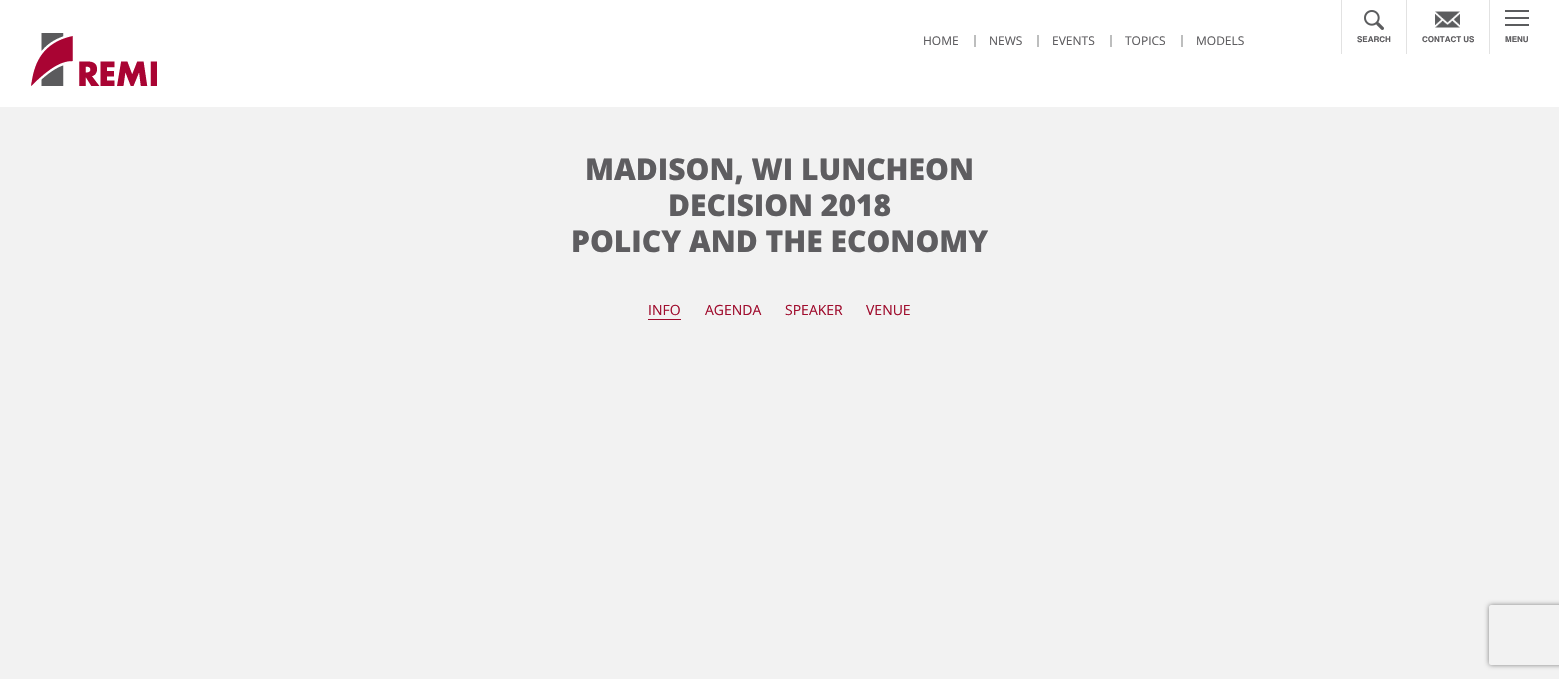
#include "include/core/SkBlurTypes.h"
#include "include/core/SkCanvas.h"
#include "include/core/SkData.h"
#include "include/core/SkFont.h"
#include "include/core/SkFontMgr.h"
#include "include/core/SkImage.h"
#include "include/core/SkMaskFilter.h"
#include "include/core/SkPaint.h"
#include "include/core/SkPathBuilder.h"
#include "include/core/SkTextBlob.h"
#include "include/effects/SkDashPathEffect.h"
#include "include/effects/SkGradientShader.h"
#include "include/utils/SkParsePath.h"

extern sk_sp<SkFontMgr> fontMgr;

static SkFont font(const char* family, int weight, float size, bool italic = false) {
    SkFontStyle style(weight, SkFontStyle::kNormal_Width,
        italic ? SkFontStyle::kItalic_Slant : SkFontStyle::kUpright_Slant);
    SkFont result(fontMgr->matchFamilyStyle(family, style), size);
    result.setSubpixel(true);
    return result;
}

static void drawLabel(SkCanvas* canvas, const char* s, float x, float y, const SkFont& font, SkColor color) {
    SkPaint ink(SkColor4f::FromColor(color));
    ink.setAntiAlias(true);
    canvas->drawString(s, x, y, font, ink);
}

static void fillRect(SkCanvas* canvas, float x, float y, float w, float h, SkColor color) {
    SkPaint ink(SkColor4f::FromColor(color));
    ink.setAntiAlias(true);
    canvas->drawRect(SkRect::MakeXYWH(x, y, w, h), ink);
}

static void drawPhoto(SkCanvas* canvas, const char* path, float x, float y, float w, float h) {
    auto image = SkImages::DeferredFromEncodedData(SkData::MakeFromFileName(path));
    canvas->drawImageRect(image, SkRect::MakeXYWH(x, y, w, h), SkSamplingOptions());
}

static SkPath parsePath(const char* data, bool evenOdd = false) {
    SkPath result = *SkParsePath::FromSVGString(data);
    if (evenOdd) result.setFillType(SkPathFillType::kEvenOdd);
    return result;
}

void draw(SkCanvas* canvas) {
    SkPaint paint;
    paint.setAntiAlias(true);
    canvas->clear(0xFFF2F2F2);
    fillRect(canvas, 0, 0, 1559, 107, 0xFFFFFFFF);
    drawPhoto(canvas, "assets/img1.png", 31, 33, 126, 53);
    SkFont font1 = font("Open Sans", 400, 12);
    drawLabel(canvas, "HOME", 923, 45, font1, 0xFF5E5D60);
    fillRect(canvas, 974, 35, 2, 12, 0xFFBDBEBE);
    drawLabel(canvas, "NEWS", 989, 45, font1, 0xFF5E5D60);
    fillRect(canvas, 1037, 35, 2, 12, 0xFFBDBEBE);
    drawLabel(canvas, "EVENTS", 1052, 45, font1, 0xFF5E5D60);
    fillRect(canvas, 1110, 35, 2, 12, 0xFFBDBEBE);
    drawLabel(canvas, "TOPICS", 1125, 45, font1, 0xFF5E5D60);
    fillRect(canvas, 1181, 35, 2, 12, 0xFFBDBEBE);
    drawLabel(canvas, "MODELS", 1196, 45, font1, 0xFF5E5D60);
    fillRect(canvas, 1341, 0, 1, 54, 0xFFE2E2E2);
    drawPhoto(canvas, "assets/img2.png", 1364, 10, 20, 20);
    SkFont font2 = font("Helvetica", 700, 8);
    drawLabel(canvas, "SEARCH", 1357, 42, font2, 0xFF5E5D60);
    fillRect(canvas, 1406, 0, 1, 54, 0xFFE2E2E2);
    drawPhoto(canvas, "assets/img3.png", 1435, 11, 25, 17);
    drawLabel(canvas, "CONTACT US", 1422, 42, font2, 0xFF5E5D60);
    fillRect(canvas, 1489, 0, 1, 54, 0xFFE2E2E2);
    drawPhoto(canvas, "assets/img4.png", 1505, 10, 24, 16);
    drawLabel(canvas, "MENU", 1505, 42, font2, 0xFF5E5D60);
    SkFont font3 = font("Open Sans", 800, 30);
    drawLabel(canvas, "MADISON, WI LUNCHEON", 585, 180, font3, 0xFF5E5D60);
    drawLabel(canvas, "DECISION 2018", 668, 216, font3, 0xFF5E5D60);
    drawLabel(canvas, "POLICY AND THE ECONOMY", 571, 252, font3, 0xFF5E5D60);
    SkFont font4 = font("Open Sans", 400, 14);
    drawLabel(canvas, "INFO", 648, 315, font4, 0xFFA00D2E);
    fillRect(canvas, 648, 319, 33, 1, 0xFFA00D2E);
    drawLabel(canvas, "AGENDA", 705, 315, font4, 0xFFA00D2E);
    drawLabel(canvas, "SPEAKER", 785, 315, font4, 0xFFA00D2E);
    drawLabel(canvas, "VENUE", 866, 315, font4, 0xFFA00D2E);
    canvas->save();
    canvas->clipPath(parsePath("M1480 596H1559V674H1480ZM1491 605H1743C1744 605 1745 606 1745 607V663C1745 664 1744 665 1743 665H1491C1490 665 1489 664 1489 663V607C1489 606 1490 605 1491 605Z", true), true);
    paint.setColor(0xFF808080);
    paint.setMaskFilter(SkMaskFilter::MakeBlur(kNormal_SkBlurStyle, 2.5f));
    canvas->drawRoundRect(SkRect::MakeXYWH(1489, 605, 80, 60), 2, 2, paint);
    paint.setMaskFilter(nullptr);
    canvas->restore();
}
